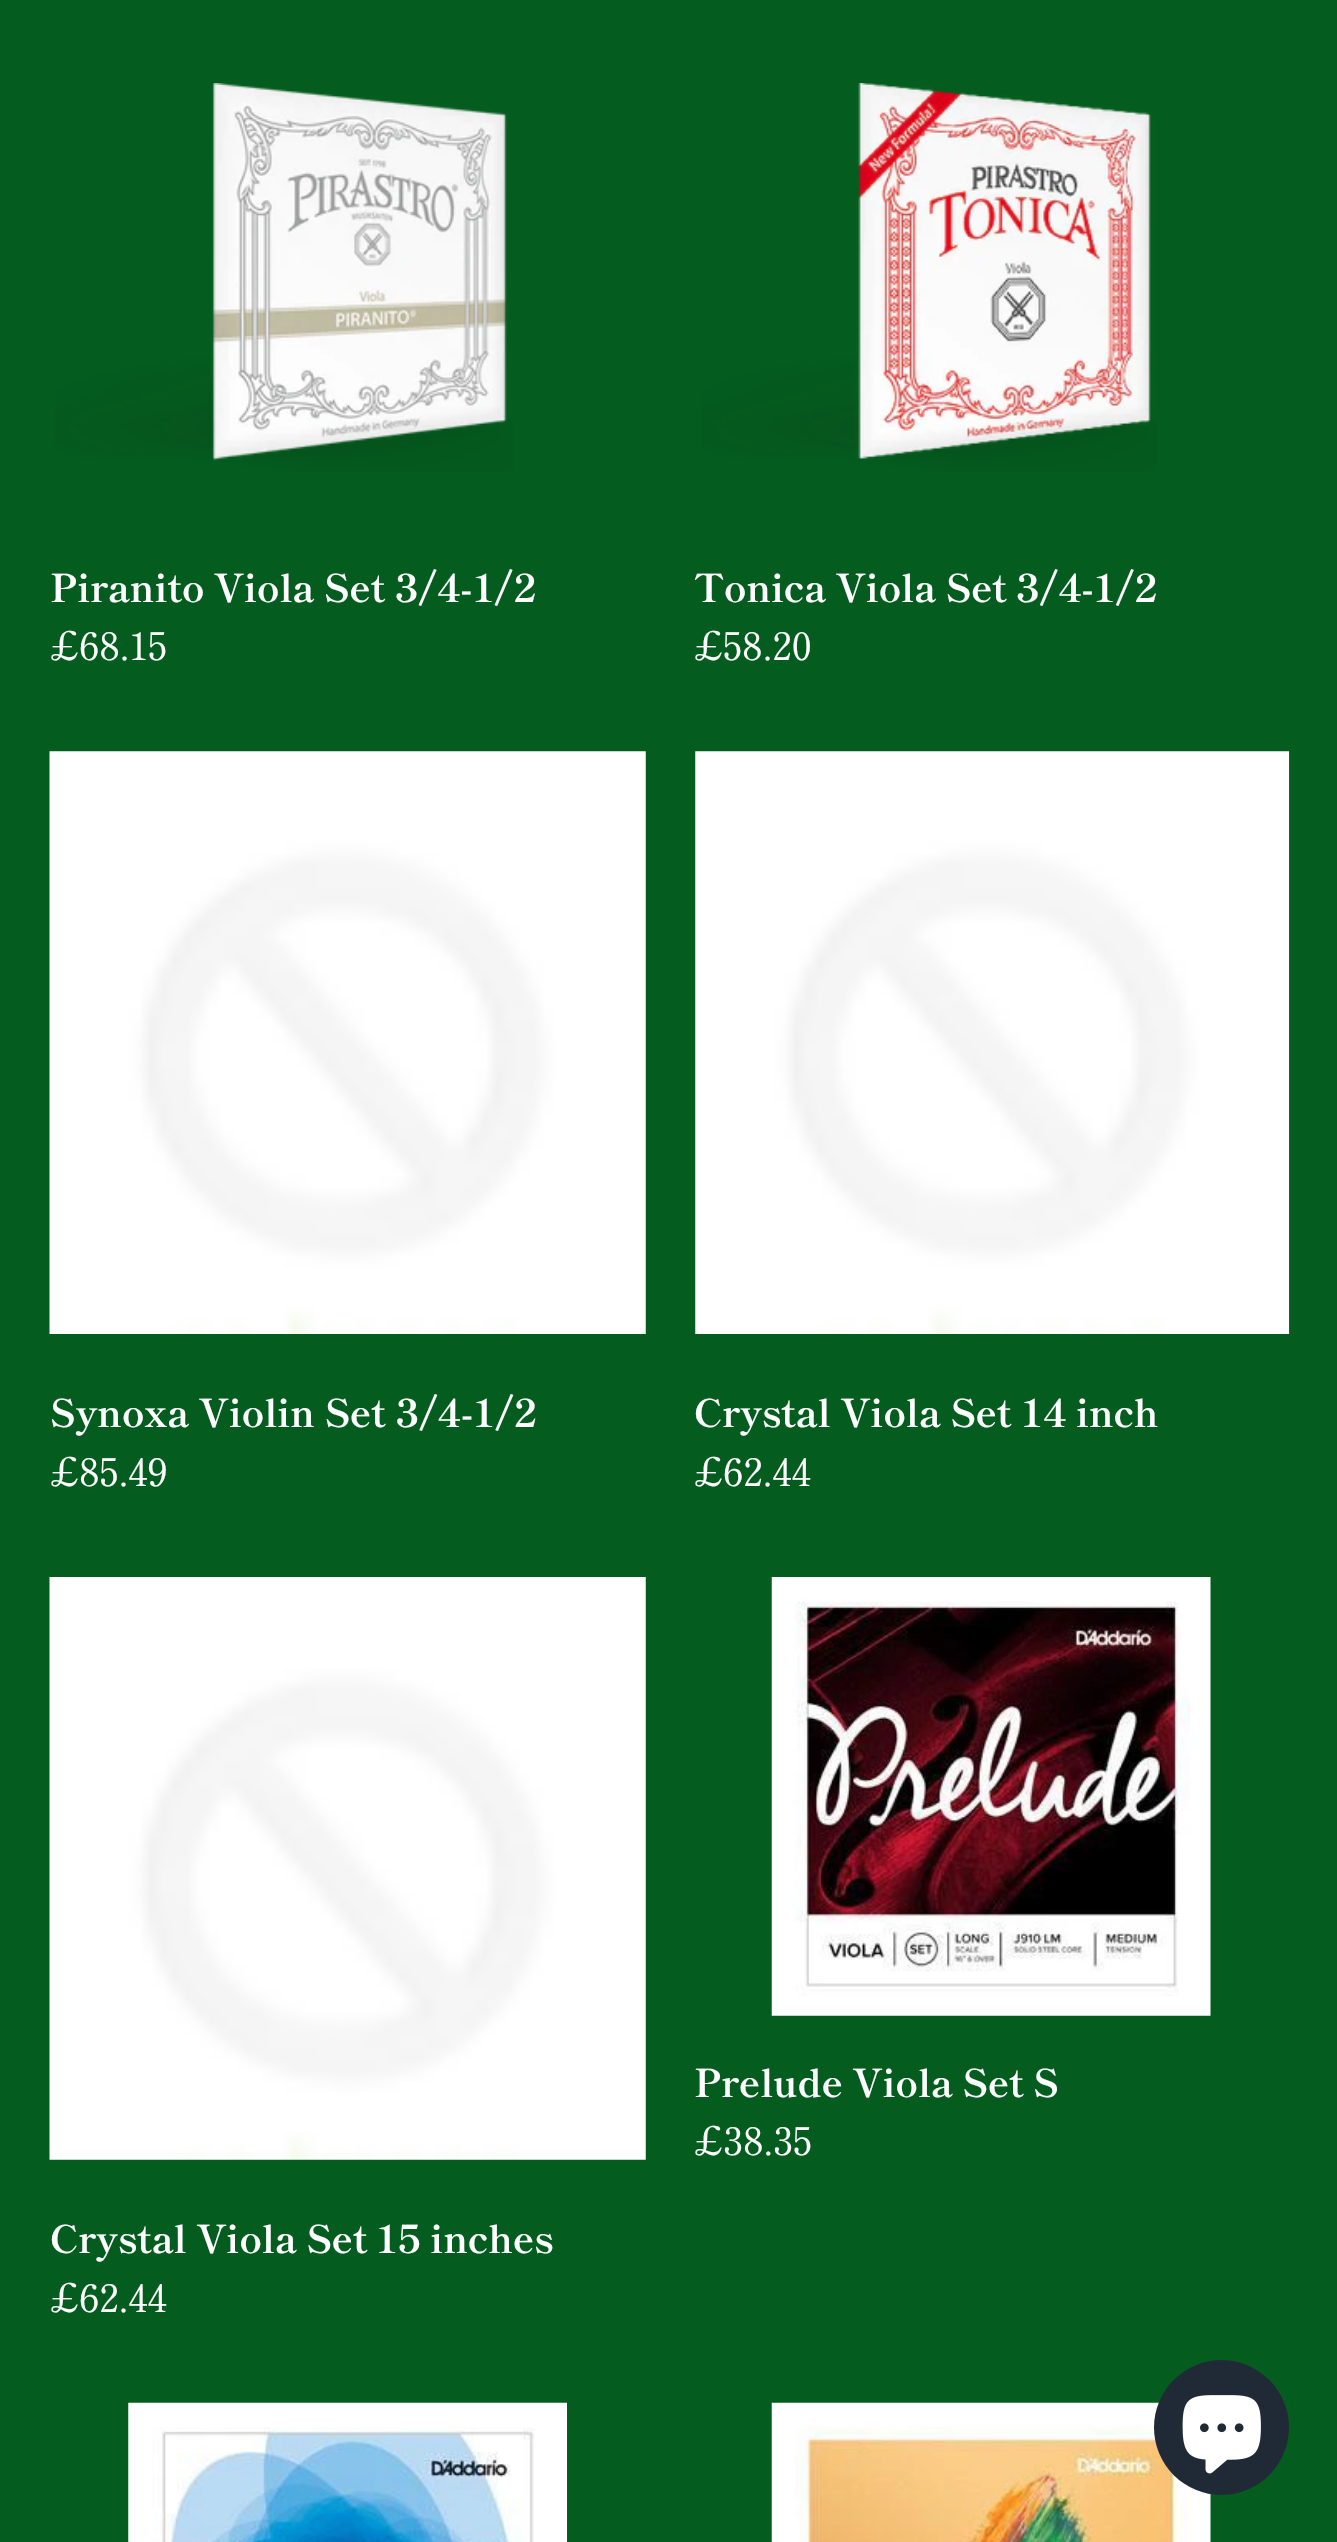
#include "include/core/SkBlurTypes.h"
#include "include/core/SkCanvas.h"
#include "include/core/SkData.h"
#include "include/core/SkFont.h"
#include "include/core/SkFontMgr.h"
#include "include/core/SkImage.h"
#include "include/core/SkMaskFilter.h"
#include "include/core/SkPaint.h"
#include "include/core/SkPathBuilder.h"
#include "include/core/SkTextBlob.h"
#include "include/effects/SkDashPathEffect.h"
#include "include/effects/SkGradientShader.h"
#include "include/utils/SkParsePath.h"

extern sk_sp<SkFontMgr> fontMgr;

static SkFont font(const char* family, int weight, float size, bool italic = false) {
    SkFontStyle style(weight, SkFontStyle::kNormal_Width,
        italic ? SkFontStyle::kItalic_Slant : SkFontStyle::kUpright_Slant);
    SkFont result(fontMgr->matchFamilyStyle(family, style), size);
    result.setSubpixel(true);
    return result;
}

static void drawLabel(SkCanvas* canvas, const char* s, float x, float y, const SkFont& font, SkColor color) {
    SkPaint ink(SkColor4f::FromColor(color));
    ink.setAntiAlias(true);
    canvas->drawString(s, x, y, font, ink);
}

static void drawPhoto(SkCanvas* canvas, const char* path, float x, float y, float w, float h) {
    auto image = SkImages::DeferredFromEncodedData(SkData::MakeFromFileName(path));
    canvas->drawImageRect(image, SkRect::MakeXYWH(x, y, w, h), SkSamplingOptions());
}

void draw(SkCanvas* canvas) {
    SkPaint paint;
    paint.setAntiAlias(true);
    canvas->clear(0xFF045D1F);
    drawPhoto(canvas, "assets/img1.png", 55, 83, 458, 389);
    SkFont font1 = font("Shippori Mincho", 700, 38.25f);
    drawLabel(canvas, "Piranito Viola Set 3/4-1/2", 50, 602, font1, 0xFFFFFFFF);
    SkFont font2 = font("Shippori Mincho", 400, 38.25f);
    drawLabel(canvas, "£68.15", 50, 660, font2, 0xFFFFFFFF);
    drawPhoto(canvas, "assets/img2.png", 702, 83, 455, 389);
    drawLabel(canvas, "Tonica Viola Set", 694, 602, font1, 0xFFFFFFFF);
    drawLabel(canvas, "3/4-1/2", 1016, 602, font1, 0xFFFFFFFF);
    drawLabel(canvas, "£58.20", 694, 660, font2, 0xFFFFFFFF);
    drawPhoto(canvas, "assets/img3.png", 49, 751, 597, 583);
    drawLabel(canvas, "Synoxa Violin Set 3/4-1/2", 50, 1427, font1, 0xFFFFFFFF);
    drawLabel(canvas, "£85.49", 50, 1486, font2, 0xFFFFFFFF);
    drawPhoto(canvas, "assets/img4.png", 695, 751, 595, 583);
    drawLabel(canvas, "Crystal Viola Set", 694, 1427, font1, 0xFFFFFFFF);
    drawLabel(canvas, "14 inch", 1021, 1427, font1, 0xFFFFFFFF);
    drawLabel(canvas, "£62.44", 694, 1486, font2, 0xFFFFFFFF);
    drawPhoto(canvas, "assets/img5.png", 771, 1577, 440, 439);
    drawLabel(canvas, "Prelude Viola Set S", 694, 2097, font1, 0xFFFFFFFF);
    drawLabel(canvas, "£38.35", 694, 2155, font2, 0xFFFFFFFF);
    drawPhoto(canvas, "assets/img6.png", 49, 1577, 597, 583);
    drawLabel(canvas, "Crystal Viola Set", 50, 2253, font1, 0xFFFFFFFF);
    drawLabel(canvas, "15 inches", 376, 2253, font1, 0xFFFFFFFF);
    drawLabel(canvas, "£62.44", 50, 2312, font2, 0xFFFFFFFF);
    drawPhoto(canvas, "assets/img7.png", 128, 2402, 439, 140);
    drawPhoto(canvas, "assets/img8.png", 771, 2402, 440, 140);
    paint.setColor(0xFF202A36);
    canvas->drawCircle(1221.5f, 2427.5f, 67.5f, paint);
    drawPhoto(canvas, "assets/img9.png", 1182, 2395, 79, 79);
}
